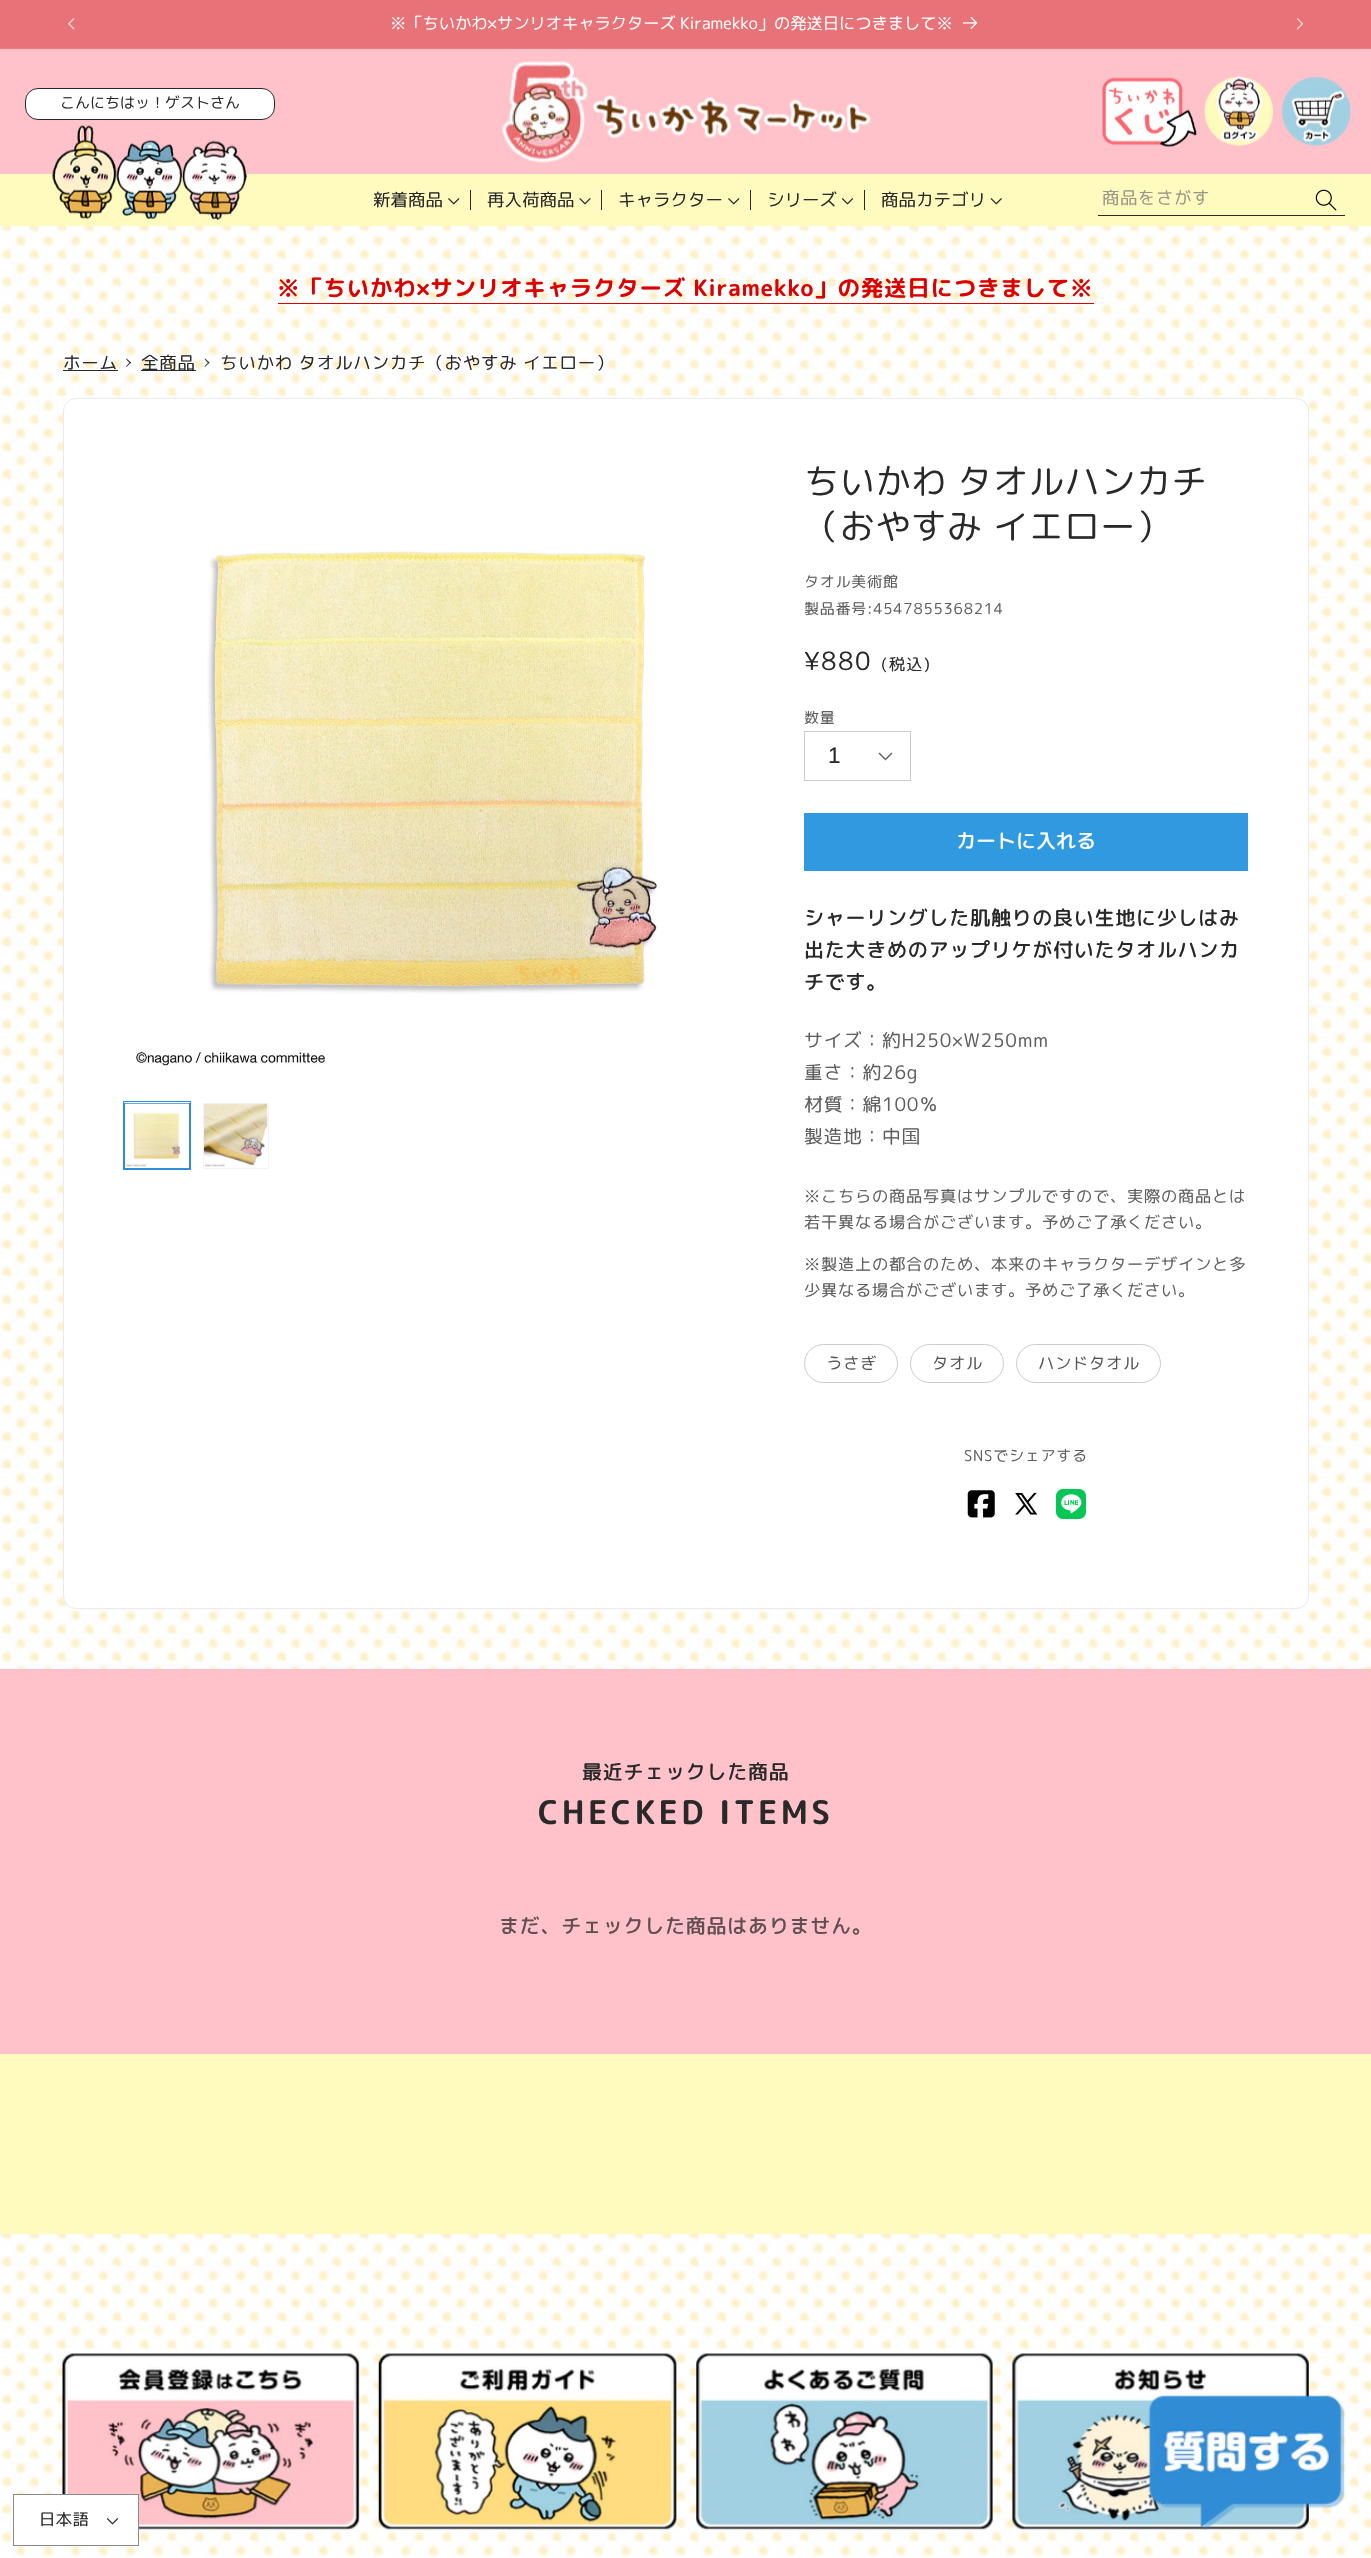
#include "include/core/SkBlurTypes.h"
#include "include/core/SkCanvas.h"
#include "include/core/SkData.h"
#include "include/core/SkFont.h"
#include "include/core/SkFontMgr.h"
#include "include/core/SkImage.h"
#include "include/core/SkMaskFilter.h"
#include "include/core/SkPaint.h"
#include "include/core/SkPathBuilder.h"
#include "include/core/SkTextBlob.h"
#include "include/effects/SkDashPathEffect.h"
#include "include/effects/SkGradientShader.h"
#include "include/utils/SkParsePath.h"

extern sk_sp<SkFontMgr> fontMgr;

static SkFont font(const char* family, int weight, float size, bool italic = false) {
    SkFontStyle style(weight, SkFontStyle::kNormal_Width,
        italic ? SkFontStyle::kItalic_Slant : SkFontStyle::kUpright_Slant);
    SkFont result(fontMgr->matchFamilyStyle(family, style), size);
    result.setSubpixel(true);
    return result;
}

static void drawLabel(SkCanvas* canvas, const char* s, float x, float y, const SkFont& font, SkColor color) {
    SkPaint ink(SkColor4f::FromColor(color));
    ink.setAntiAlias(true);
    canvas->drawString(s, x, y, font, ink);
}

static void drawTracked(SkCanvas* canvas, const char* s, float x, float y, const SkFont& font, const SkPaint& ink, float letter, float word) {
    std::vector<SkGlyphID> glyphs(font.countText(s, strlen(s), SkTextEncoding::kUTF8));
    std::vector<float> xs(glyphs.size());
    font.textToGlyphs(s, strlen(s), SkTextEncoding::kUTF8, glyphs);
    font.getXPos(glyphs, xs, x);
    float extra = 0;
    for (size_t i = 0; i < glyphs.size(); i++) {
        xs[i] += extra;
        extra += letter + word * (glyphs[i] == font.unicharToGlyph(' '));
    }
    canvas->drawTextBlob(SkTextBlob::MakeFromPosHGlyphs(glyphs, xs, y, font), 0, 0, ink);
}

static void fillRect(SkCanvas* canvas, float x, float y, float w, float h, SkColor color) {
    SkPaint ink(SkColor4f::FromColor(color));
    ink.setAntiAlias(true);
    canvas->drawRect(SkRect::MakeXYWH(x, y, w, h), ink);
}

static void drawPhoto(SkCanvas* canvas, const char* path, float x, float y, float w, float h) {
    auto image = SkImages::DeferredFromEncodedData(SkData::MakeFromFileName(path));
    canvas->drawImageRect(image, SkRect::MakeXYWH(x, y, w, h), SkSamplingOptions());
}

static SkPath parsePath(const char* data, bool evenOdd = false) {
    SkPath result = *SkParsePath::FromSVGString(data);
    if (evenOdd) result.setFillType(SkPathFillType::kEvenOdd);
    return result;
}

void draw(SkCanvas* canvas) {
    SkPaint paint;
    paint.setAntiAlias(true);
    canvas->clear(0xFFFFFFFF);
    drawPhoto(canvas, "assets/img1.png", 0, 226, 1371, 2332);
    fillRect(canvas, 0, 0, 1371, 48, 0xFFE77277);
    fillRect(canvas, 0, 48, 1371, 1, 0xFFE97D82);
    drawPhoto(canvas, "assets/img2.png", 68, 18, 7, 12);
    SkFont font1 = font("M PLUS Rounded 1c", 400, 16.25f);
    drawLabel(canvas, "※「ちいかわ×サンリオキャラクターズ Kiramekko」の発送日につきまして※", 390, 29, font1, 0xFFFFFFFF);
    drawPhoto(canvas, "assets/img3.png", 963, 17, 15, 12);
    drawPhoto(canvas, "assets/img4.png", 1297, 18, 6, 12);
    fillRect(canvas, 0, 49, 1371, 125, 0xFFFFC2CA);
    fillRect(canvas, 0, 174, 1371, 52, 0xFFFFFBBF);
    paint.setColor(0xFFFFFFFF);
    canvas->drawRoundRect(SkRect::MakeXYWH(25.5f, 88.5f, 249, 31), 12.5f, 12.5f, paint);
    paint.setStroke(true);
    paint.setStrokeWidth(1);
    paint.setColor(0xFF292929);
    canvas->drawRoundRect(SkRect::MakeXYWH(25.5f, 88.5f, 249, 31), 12.5f, 12.5f, paint);
    SkFont font2 = font("M PLUS Rounded 1c", 400, 15);
    drawLabel(canvas, "こんにちはッ！ゲストさん", 60, 108, font2, 0xFF292929);
    drawPhoto(canvas, "assets/img5.png", 52, 125, 195, 95);
    drawPhoto(canvas, "assets/img6.png", 502, 61, 369, 102);
    drawPhoto(canvas, "assets/img7.png", 1102, 77, 95, 70);
    drawPhoto(canvas, "assets/img8.png", 1204, 75, 69, 71);
    drawPhoto(canvas, "assets/img9.png", 1282, 76, 69, 70);
    SkFont font3 = font("M PLUS Rounded 1c", 400, 17.5f);
    drawLabel(canvas, "新着商品", 373, 206, font3, 0xFF292929);
    drawPhoto(canvas, "assets/img10.png", 448, 198, 12, 7);
    fillRect(canvas, 470, 190, 1, 20, 0xFF292929);
    drawLabel(canvas, "再入荷商品", 487, 206, font3, 0xFF292929);
    drawPhoto(canvas, "assets/img11.png", 579, 198, 12, 7);
    fillRect(canvas, 601, 190, 1, 20, 0xFF292929);
    drawLabel(canvas, "キャラクター", 618, 206, font3, 0xFF292929);
    drawPhoto(canvas, "assets/img10.png", 728, 198, 12, 7);
    fillRect(canvas, 750, 190, 1, 20, 0xFF292929);
    drawLabel(canvas, "シリーズ", 767, 206, font3, 0xFF292929);
    drawPhoto(canvas, "assets/img12.png", 841, 198, 13, 7);
    fillRect(canvas, 864, 190, 1, 20, 0xFF292929);
    drawLabel(canvas, "商品カテゴリ", 881, 206, font3, 0xFF292929);
    drawPhoto(canvas, "assets/img13.png", 990, 198, 12, 7);
    fillRect(canvas, 1098, 215, 247, 1, 0xFF292929);
    paint.setStroke(false);
    paint.setColor(0xFF989788);
    drawTracked(canvas, "商品をさがす", 1102, 204, font3, paint, 0.5f, 0);
    drawPhoto(canvas, "assets/img14.png", 1315, 189, 22, 22);
    SkFont font4 = font("M PLUS Rounded 1c", 700, 22.5f);
    paint.setColor(0xFFDD0000);
    drawTracked(canvas, "※「ちいかわ×サンリオキャラクターズ Kiramekko」の発送日につきまして※", 277, 296, font4, paint, 0.75f, 0);
    fillRect(canvas, 278, 303, 816, 1, 0xFFDD0000);
    paint.setColor(0xFF292929);
    drawTracked(canvas, "ホーム", 63, 369, font3, paint, 0.75f, 0);
    fillRect(canvas, 63, 370, 55, 1, 0xFF292929);
    canvas->drawPath(parsePath("M126 359L126.5 358.5L131 362.5L130 363.5Z"), paint);
    canvas->drawPath(parsePath("M126 366.5L130 362L131 362.5L126.5 367Z"), paint);
    fillRect(canvas, 141, 370, 55, 1, 0xFF292929);
    drawTracked(canvas, "全商品", 141, 369, font3, paint, 0.75f, 0);
    canvas->drawPath(parsePath("M204.5 359L205 358.5L209.5 362.5L208.5 363.5Z"), paint);
    canvas->drawPath(parsePath("M204.5 366.5L208.5 362L209.5 362.5L205 367Z"), paint);
    drawTracked(canvas, "ちいかわ タオルハンカチ（おやすみ イエロー）", 220, 369, font3, paint, 0.75f, 0);
    paint.setColor(0xFFFFFFFF);
    canvas->drawRoundRect(SkRect::MakeXYWH(63.5f, 398.5f, 1245, 1210), 12.5f, 12.5f, paint);
    paint.setStroke(true);
    paint.setColor(0xFFEAEAEA);
    canvas->drawRoundRect(SkRect::MakeXYWH(63.5f, 398.5f, 1245, 1210), 12.5f, 12.5f, paint);
    drawPhoto(canvas, "assets/img15.png", 136, 549, 522, 517);
    paint.setColor(0xFF318CD5);
    canvas->drawRect(SkRect::MakeXYWH(123.5f, 1101.5f, 67, 68), paint);
    canvas->drawRect(SkRect::MakeXYWH(124.5f, 1103.5f, 65, 65), paint);
    drawPhoto(canvas, "assets/img16.png", 125, 1103, 64, 64);
    paint.setColor(0xFFF4F4F4);
    canvas->drawRect(SkRect::MakeXYWH(203.5f, 1103.5f, 65, 65), paint);
    drawPhoto(canvas, "assets/img17.png", 203, 1103, 65, 64);
    SkFont font5 = font("M PLUS Rounded 1c", 400, 35);
    paint.setStroke(false);
    paint.setColor(0xFF292929);
    drawTracked(canvas, "ちいかわ タオルハンカチ", 804, 494, font5, paint, 0.75f, 0);
    drawTracked(canvas, "（おやすみ イエロー）", 804, 539, font5, paint, 0.75f, 0);
    paint.setColor(0xFF5F5F5F);
    drawTracked(canvas, "タオル美術館", 804, 587, font2, paint, 0.75f, 0);
    drawTracked(canvas, "製品番号:4547855368214", 804, 614, font2, paint, 0.75f, 0);
    SkFont font6 = font("M PLUS Rounded 1c", 400, 25);
    paint.setColor(0xFF292929);
    drawTracked(canvas, "¥880", 804, 670, font6, paint, 1.5f, 0);
    drawTracked(canvas, "(税込)", 881, 670, font1, paint, 1.5f, 0);
    paint.setColor(0xFF5F5F5F);
    drawTracked(canvas, "数量", 804, 723, font2, paint, 0.75f, 0);
    paint.setStroke(true);
    paint.setColor(0xFFCCCCCC);
    canvas->drawRect(SkRect::MakeXYWH(804.5f, 731.5f, 106, 49), paint);
    SkFont font7 = font("Liberation Sans", 400, 22.5f);
    drawLabel(canvas, "1", 828, 763, font7, 0xFF292929);
    paint.setStroke(false);
    paint.setColor(0xFF5F5F5F);
    canvas->drawPath(parsePath("M892.5 753.5L885.5 760.5V758.5L891.5 752.5Z"), paint);
    paint.setColor(0xBF292929);
    canvas->drawPath(parsePath("M885.5 760.5L878.5 753.5L879.5 752.5L885.5 758.5Z"), paint);
    fillRect(canvas, 804, 813, 444, 58, 0xFF2F9AE0);
    SkFont font8 = font("M PLUS Rounded 1c", 500, 20);
    drawLabel(canvas, "カートに入れる", 956, 848, font8, 0xFFFFFFFF);
    paint.setColor(0xFF292929);
    drawTracked(canvas, "シャーリングした肌触りの良い生地に少しはみ", 804, 925, font8, paint, 0.75f, 0);
    drawTracked(canvas, "出た大きめのアップリケが付いたタオルハンカ", 804, 957, font8, paint, 0.75f, 0);
    drawTracked(canvas, "チです。", 804, 989, font8, paint, 0.75f, 0);
    SkFont font9 = font("M PLUS Rounded 1c", 400, 18.75f);
    paint.setColor(0xFF5F5F5F);
    drawTracked(canvas, "サイズ：約H250×W250mm", 804, 1047, font9, paint, 0.75f, 0);
    drawTracked(canvas, "重さ：約26g", 804, 1079, font9, paint, 0.75f, 0);
    drawTracked(canvas, "材質：綿100％", 804, 1111, font9, paint, 0.75f, 0);
    drawTracked(canvas, "製造地：中国", 804, 1143, font9, paint, 0.75f, 0);
    drawTracked(canvas, "※こちらの商品写真はサンプルですので、実際の商品とは", 804, 1202, font1, paint, 0.75f, 0);
    drawTracked(canvas, "若干異なる場合がございます。予めご了承ください。", 804, 1228, font1, paint, 0.75f, 0);
    drawTracked(canvas, "※製造上の都合のため、本来のキャラクターデザインと多", 804, 1270, font1, paint, 0.75f, 0);
    drawTracked(canvas, "少異なる場合がございます。予めご了承ください。", 804, 1296, font1, paint, 0.75f, 0);
    paint.setStroke(true);
    paint.setColor(0xFFCCCCCC);
    canvas->drawRoundRect(SkRect::MakeXYWH(804.5f, 1344.5f, 93, 38), 19, 19, paint);
    paint.setStroke(false);
    paint.setColor(0xFF555555);
    drawTracked(canvas, "うさぎ", 826, 1369, font1, paint, 0.75f, 0);
    paint.setStroke(true);
    paint.setColor(0xFFCCCCCC);
    canvas->drawRoundRect(SkRect::MakeXYWH(910.5f, 1344.5f, 93, 38), 19, 19, paint);
    paint.setStroke(false);
    paint.setColor(0xFF555555);
    drawTracked(canvas, "タオル", 932, 1369, font1, paint, 0.75f, 0);
    paint.setStroke(true);
    paint.setColor(0xFFCCCCCC);
    canvas->drawRoundRect(SkRect::MakeXYWH(1016.5f, 1344.5f, 144, 38), 19, 19, paint);
    paint.setStroke(false);
    paint.setColor(0xFF555555);
    drawTracked(canvas, "ハンドタオル", 1038, 1369, font1, paint, 0.75f, 0);
    paint.setColor(0xFF5F5F5F);
    drawTracked(canvas, "SNSでシェアする", 964, 1461, font2, paint, 0.75f, 0);
    drawPhoto(canvas, "assets/img18.png", 967, 1490, 28, 28);
    drawPhoto(canvas, "assets/img19.png", 1015, 1492, 23, 23);
    drawPhoto(canvas, "assets/img20.png", 1056, 1489, 30, 30);
    fillRect(canvas, 0, 1669, 1371, 385, 0xFFFFC2CA);
    paint.setColor(0xFF292929);
    drawTracked(canvas, "最近チェックした商品", 582, 1779, font8, paint, 0.75f, 0);
    SkFont font10 = font("M PLUS Rounded 1c", 700, 32.5f);
    drawTracked(canvas, "CHECKED ITEMS", 538, 1824, font10, paint, 3.25f, 0);
    paint.setColor(0xFF5F4F51);
    drawTracked(canvas, "まだ、チェックした商品はありません。", 499, 1933, font8, paint, 0.75f, 0);
    fillRect(canvas, 0, 2054, 1371, 180, 0xFFFFFBBF);
    drawPhoto(canvas, "assets/img21.png", 62, 2353, 298, 177);
    drawPhoto(canvas, "assets/img22.png", 378, 2353, 299, 177);
    drawPhoto(canvas, "assets/img23.png", 696, 2353, 297, 177);
    drawPhoto(canvas, "assets/img24.png", 1012, 2353, 297, 177);
    fillRect(canvas, 14, 2495, 124, 50, 0xFFFFFFFF);
    drawPhoto(canvas, "assets/img25.png", 106, 2518, 13, 7);
    paint.setStroke(true);
    paint.setColor(0xFF898989);
    canvas->drawRect(SkRect::MakeXYWH(13.5f, 2494.5f, 125, 51), paint);
    paint.setStroke(false);
    paint.setColor(0xFF292929);
    drawTracked(canvas, "日本語", 39, 2525, font1, paint, 0.5f, 0);
    drawPhoto(canvas, "assets/img26.png", 1148, 2395, 197, 136);
}
